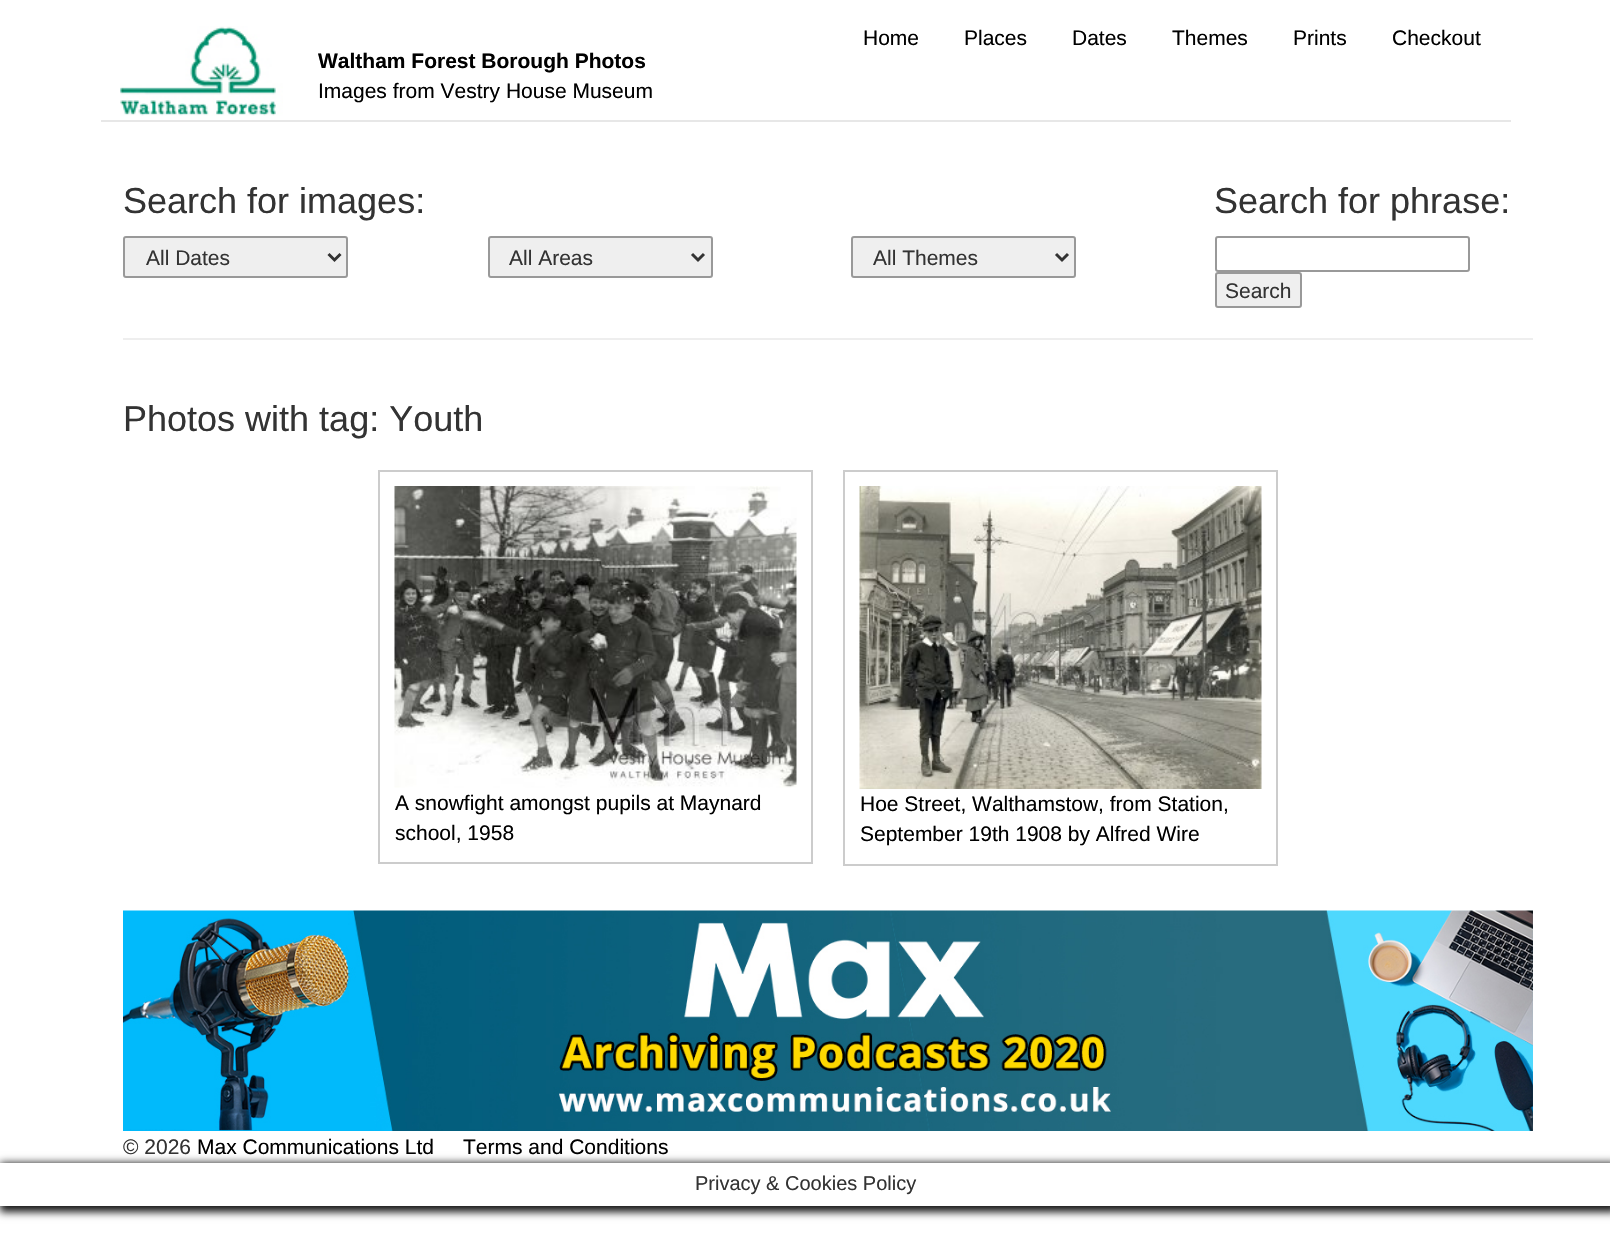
#include "include/core/SkBlurTypes.h"
#include "include/core/SkCanvas.h"
#include "include/core/SkData.h"
#include "include/core/SkFont.h"
#include "include/core/SkFontMgr.h"
#include "include/core/SkImage.h"
#include "include/core/SkMaskFilter.h"
#include "include/core/SkPaint.h"
#include "include/core/SkPathBuilder.h"
#include "include/core/SkTextBlob.h"
#include "include/effects/SkDashPathEffect.h"
#include "include/effects/SkGradientShader.h"
#include "include/utils/SkParsePath.h"

extern sk_sp<SkFontMgr> fontMgr;

static SkFont font(const char* family, int weight, float size, bool italic = false) {
    SkFontStyle style(weight, SkFontStyle::kNormal_Width,
        italic ? SkFontStyle::kItalic_Slant : SkFontStyle::kUpright_Slant);
    SkFont result(fontMgr->matchFamilyStyle(family, style), size);
    result.setSubpixel(true);
    return result;
}

static void drawLabel(SkCanvas* canvas, const char* s, float x, float y, const SkFont& font, SkColor color) {
    SkPaint ink(SkColor4f::FromColor(color));
    ink.setAntiAlias(true);
    canvas->drawString(s, x, y, font, ink);
}

static void fillRect(SkCanvas* canvas, float x, float y, float w, float h, SkColor color) {
    SkPaint ink(SkColor4f::FromColor(color));
    ink.setAntiAlias(true);
    canvas->drawRect(SkRect::MakeXYWH(x, y, w, h), ink);
}

static void drawPhoto(SkCanvas* canvas, const char* path, float x, float y, float w, float h) {
    auto image = SkImages::DeferredFromEncodedData(SkData::MakeFromFileName(path));
    canvas->drawImageRect(image, SkRect::MakeXYWH(x, y, w, h), SkSamplingOptions());
}

static SkPath parsePath(const char* data, bool evenOdd = false) {
    SkPath result = *SkParsePath::FromSVGString(data);
    if (evenOdd) result.setFillType(SkPathFillType::kEvenOdd);
    return result;
}

void draw(SkCanvas* canvas) {
    SkPaint paint;
    paint.setAntiAlias(true);
    canvas->clear(0xFFFFFFFF);
    fillRect(canvas, 101, 120, 1410, 2, 0xFFE7E7E7);
    SkFont font1 = font("Liberation Sans", 400, 21);
    drawLabel(canvas, "Home", 863, 45, font1, 0xFF000000);
    drawLabel(canvas, "Places", 964, 45, font1, 0xFF000000);
    drawLabel(canvas, "Dates", 1072, 45, font1, 0xFF000000);
    drawLabel(canvas, "Themes", 1172, 45, font1, 0xFF000000);
    drawLabel(canvas, "Prints", 1293, 45, font1, 0xFF000000);
    drawLabel(canvas, "Checkout", 1392, 45, font1, 0xFF000000);
    drawPhoto(canvas, "assets/img1.png", 120, 26, 163, 90);
    SkFont font2 = font("Liberation Sans", 700, 21);
    drawLabel(canvas, "Waltham Forest Borough Photos", 318, 68, font2, 0xFF000000);
    drawLabel(canvas, "Images from Vestry House Museum", 318, 98, font1, 0xFF000000);
    SkFont font3 = font("Liberation Sans", 400, 36);
    drawLabel(canvas, "Search for images:", 123, 213, font3, 0xFF333333);
    drawLabel(canvas, "Search for phrase:", 1214, 213, font3, 0xFF333333);
    paint.setColor(0xFFEFEFEF);
    canvas->drawRoundRect(SkRect::MakeXYWH(124, 237, 223, 40), 2, 2, paint);
    paint.setStroke(true);
    paint.setStrokeWidth(2);
    paint.setColor(0xFF999999);
    canvas->drawRoundRect(SkRect::MakeXYWH(124, 237, 223, 40), 2, 2, paint);
    paint.setStrokeWidth(3);
    paint.setColor(0xFF333333);
    canvas->drawPath(parsePath("M328.5 254L334.5 260L340.5 254"), paint);
    drawLabel(canvas, "All Dates", 146, 265, font1, 0xFF333333);
    paint.setStroke(false);
    paint.setColor(0xFFEFEFEF);
    canvas->drawRoundRect(SkRect::MakeXYWH(489, 237, 223, 40), 2, 2, paint);
    paint.setStroke(true);
    paint.setStrokeWidth(2);
    paint.setColor(0xFF999999);
    canvas->drawRoundRect(SkRect::MakeXYWH(489, 237, 223, 40), 2, 2, paint);
    paint.setStrokeWidth(3);
    paint.setColor(0xFF333333);
    canvas->drawPath(parsePath("M692 254L698 260L704 254"), paint);
    drawLabel(canvas, "All Areas", 509, 265, font1, 0xFF333333);
    paint.setStroke(false);
    paint.setColor(0xFFEFEFEF);
    canvas->drawRoundRect(SkRect::MakeXYWH(852, 237, 223, 40), 2, 2, paint);
    paint.setStroke(true);
    paint.setStrokeWidth(2);
    paint.setColor(0xFF999999);
    canvas->drawRoundRect(SkRect::MakeXYWH(852, 237, 223, 40), 2, 2, paint);
    paint.setStrokeWidth(3);
    paint.setColor(0xFF333333);
    canvas->drawPath(parsePath("M1056 254L1062 260L1068 254"), paint);
    drawLabel(canvas, "All Themes", 873, 265, font1, 0xFF333333);
    paint.setStrokeWidth(2);
    paint.setColor(0xFF999999);
    canvas->drawRoundRect(SkRect::MakeXYWH(1216, 237, 253, 34), 2, 2, paint);
    paint.setStroke(false);
    paint.setColor(0xFFEFEFEF);
    canvas->drawRoundRect(SkRect::MakeXYWH(1216, 273, 85, 34), 2, 2, paint);
    paint.setStroke(true);
    paint.setColor(0xFF999999);
    canvas->drawRoundRect(SkRect::MakeXYWH(1216, 273, 85, 34), 2, 2, paint);
    drawLabel(canvas, "Search", 1225, 298, font1, 0xFF333333);
    fillRect(canvas, 123, 338, 1410, 2, 0xFFEEEEEE);
    drawLabel(canvas, "Photos with tag: Youth", 123, 431, font3, 0xFF333333);
    paint.setColor(0xFFCCCCCC);
    canvas->drawRect(SkRect::MakeXYWH(379, 471, 433, 392), paint);
    drawPhoto(canvas, "assets/img2.png", 394, 486, 403, 302);
    drawLabel(canvas, "A snowfight amongst pupils at Maynard", 395, 810, font1, 0xFF000000);
    drawLabel(canvas, "school, 1958", 395, 840, font1, 0xFF000000);
    canvas->drawRect(SkRect::MakeXYWH(844, 471, 433, 394), paint);
    drawPhoto(canvas, "assets/img3.png", 859, 486, 403, 303);
    drawLabel(canvas, "Hoe Street, Walthamstow, from Station,", 860, 811, font1, 0xFF000000);
    drawLabel(canvas, "September 19th 1908 by Alfred Wire", 860, 841, font1, 0xFF000000);
    drawPhoto(canvas, "assets/img4.png", 123, 910, 1410, 221);
    canvas->save();
    canvas->clipPath(parsePath("M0 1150H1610V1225H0ZM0 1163H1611V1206H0Z", true), true);
    paint.setStroke(false);
    paint.setColor(0xFF161616);
    paint.setMaskFilter(SkMaskFilter::MakeBlur(kNormal_SkBlurStyle, 4));
    canvas->drawRect(SkRect::MakeXYWH(0, 1163, 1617, 49), paint);
    paint.setMaskFilter(nullptr);
    canvas->restore();
    drawLabel(canvas, "© 2026", 123, 1154, font1, 0xFF333333);
    drawLabel(canvas, "Max Communications Ltd", 197, 1154, font1, 0xFF000000);
    drawLabel(canvas, "Terms and Conditions", 463, 1154, font1, 0xFF000000);
    SkFont font4 = font("Liberation Sans", 400, 20);
    drawLabel(canvas, "Privacy & Cookies Policy", 695, 1190, font4, 0xFF333333);
}
